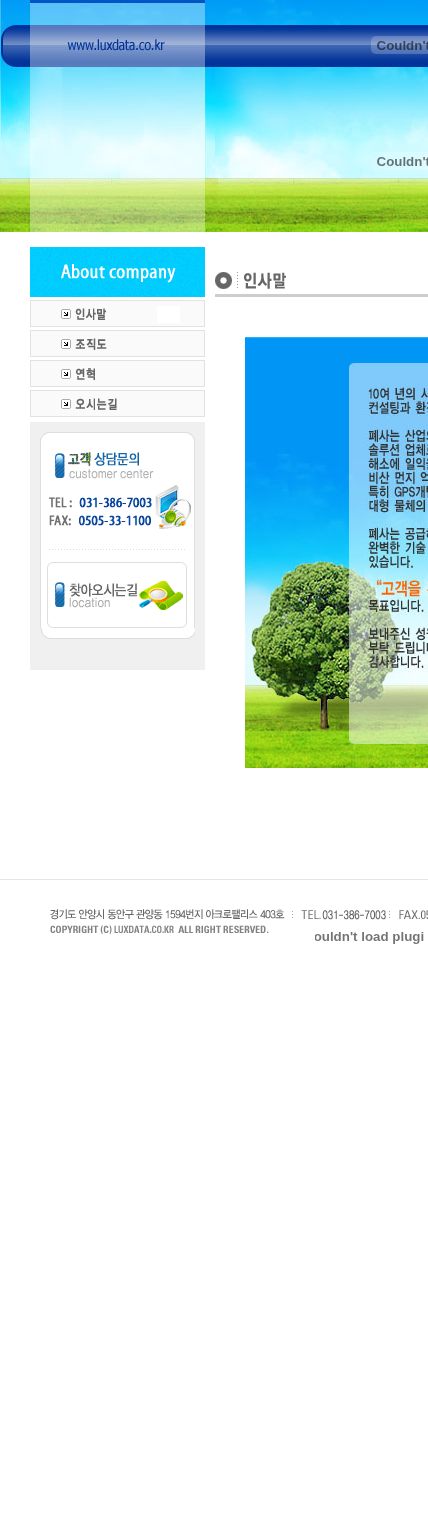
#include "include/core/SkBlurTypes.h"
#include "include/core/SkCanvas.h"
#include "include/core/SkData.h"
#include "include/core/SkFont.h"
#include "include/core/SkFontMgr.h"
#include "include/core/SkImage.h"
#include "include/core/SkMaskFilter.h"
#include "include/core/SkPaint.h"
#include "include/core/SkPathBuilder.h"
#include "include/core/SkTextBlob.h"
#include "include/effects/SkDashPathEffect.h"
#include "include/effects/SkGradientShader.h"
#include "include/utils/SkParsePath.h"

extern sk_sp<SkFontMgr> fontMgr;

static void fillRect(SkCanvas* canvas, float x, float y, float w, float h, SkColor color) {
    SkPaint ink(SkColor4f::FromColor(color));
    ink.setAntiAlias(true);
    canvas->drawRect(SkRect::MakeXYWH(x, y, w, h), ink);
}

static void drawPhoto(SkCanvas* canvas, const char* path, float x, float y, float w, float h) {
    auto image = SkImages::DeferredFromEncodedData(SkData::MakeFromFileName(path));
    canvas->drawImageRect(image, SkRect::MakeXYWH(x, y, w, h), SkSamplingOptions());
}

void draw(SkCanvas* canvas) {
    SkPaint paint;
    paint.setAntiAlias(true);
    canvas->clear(0xFFFFFFFF);
    drawPhoto(canvas, "assets/img1.png", 0, 0, 428, 90);
    drawPhoto(canvas, "assets/img2.png", 371, 36, 57, 18);
    drawPhoto(canvas, "assets/img3.png", 0, 90, 428, 142);
    drawPhoto(canvas, "assets/img4.png", 371, 152, 57, 18);
    drawPhoto(canvas, "assets/img5.png", 30, 247, 175, 50);
    drawPhoto(canvas, "assets/img6.png", 30, 300, 175, 27);
    drawPhoto(canvas, "assets/img7.png", 30, 330, 175, 27);
    drawPhoto(canvas, "assets/img8.png", 30, 360, 175, 27);
    drawPhoto(canvas, "assets/img9.png", 30, 390, 175, 27);
    fillRect(canvas, 30, 422, 175, 248, 0xFFF0F0F0);
    drawPhoto(canvas, "assets/img10.png", 40, 432, 155, 130);
    drawPhoto(canvas, "assets/img11.png", 40, 562, 155, 66);
    drawPhoto(canvas, "assets/img12.png", 41, 628, 154, 11);
    drawPhoto(canvas, "assets/img13.png", 215, 272, 213, 25);
    drawPhoto(canvas, "assets/img14.png", 245, 337, 183, 431);
    fillRect(canvas, 0, 879, 428, 1, 0xFFE5E5E5);
    drawPhoto(canvas, "assets/img15.png", 50, 909, 378, 25);
    drawPhoto(canvas, "assets/img16.png", 315, 932, 109, 12);
}
